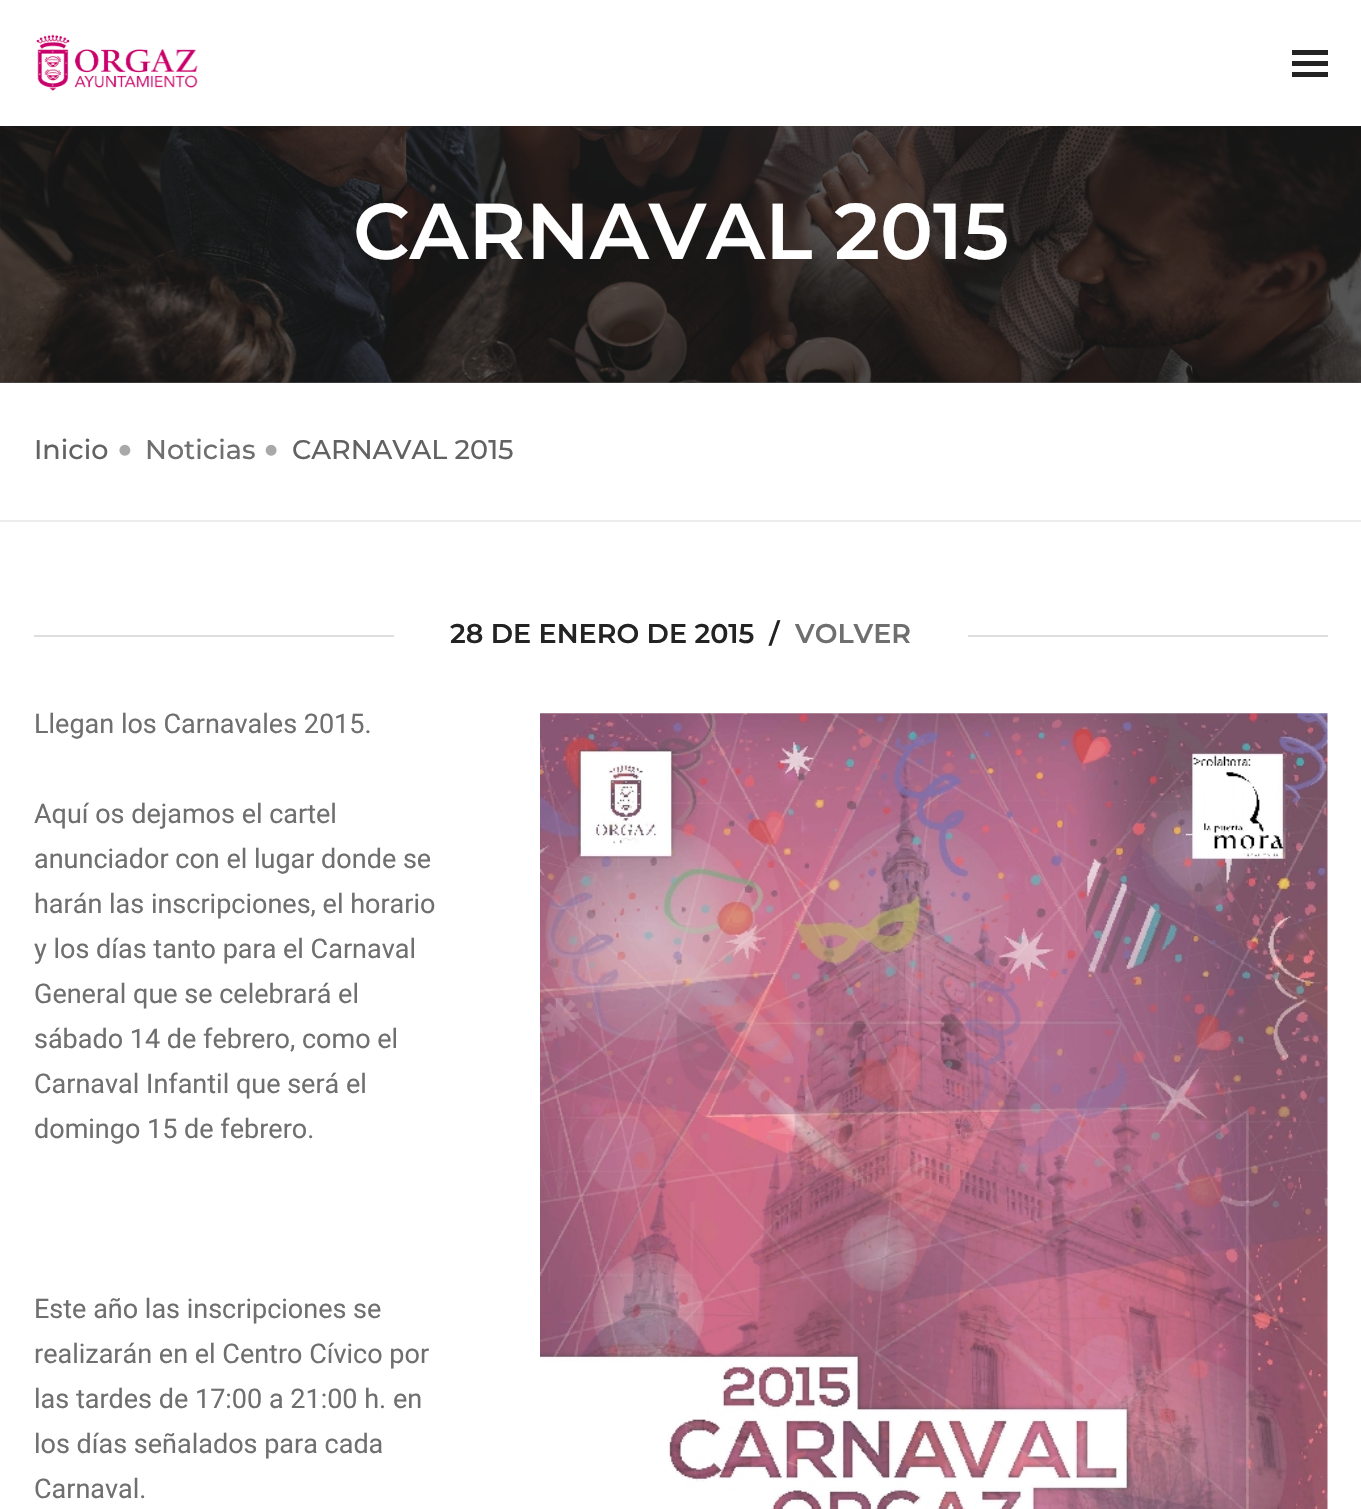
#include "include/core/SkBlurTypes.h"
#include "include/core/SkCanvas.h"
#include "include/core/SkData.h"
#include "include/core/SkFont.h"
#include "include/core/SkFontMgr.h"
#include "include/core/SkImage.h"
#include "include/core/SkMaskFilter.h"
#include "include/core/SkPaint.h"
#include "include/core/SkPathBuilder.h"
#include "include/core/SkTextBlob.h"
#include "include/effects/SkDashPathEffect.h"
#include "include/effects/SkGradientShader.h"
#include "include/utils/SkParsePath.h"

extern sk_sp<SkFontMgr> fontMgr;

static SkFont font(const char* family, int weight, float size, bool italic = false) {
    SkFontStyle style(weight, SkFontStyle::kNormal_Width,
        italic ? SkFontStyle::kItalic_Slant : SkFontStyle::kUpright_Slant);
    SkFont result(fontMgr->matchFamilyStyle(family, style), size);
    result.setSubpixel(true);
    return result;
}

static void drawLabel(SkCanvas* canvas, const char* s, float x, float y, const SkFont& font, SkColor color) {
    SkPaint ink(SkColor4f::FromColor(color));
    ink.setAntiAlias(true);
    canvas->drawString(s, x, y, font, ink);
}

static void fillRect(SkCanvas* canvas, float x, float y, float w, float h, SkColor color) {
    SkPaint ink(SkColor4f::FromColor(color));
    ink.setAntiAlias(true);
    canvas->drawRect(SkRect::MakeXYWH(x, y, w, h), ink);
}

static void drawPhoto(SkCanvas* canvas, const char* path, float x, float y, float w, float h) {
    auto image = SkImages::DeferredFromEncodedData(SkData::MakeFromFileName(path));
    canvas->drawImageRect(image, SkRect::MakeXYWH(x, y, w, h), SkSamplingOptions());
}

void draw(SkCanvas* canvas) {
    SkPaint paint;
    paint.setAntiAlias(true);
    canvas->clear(0xFFFFFFFF);
    fillRect(canvas, 0, 382, 1361, 1, 0xFF555555);
    drawPhoto(canvas, "assets/img1.png", 36, 34, 162, 57);
    fillRect(canvas, 1292, 50, 36, 5, 0xFF232323);
    fillRect(canvas, 1292, 61, 36, 5, 0xFF232323);
    fillRect(canvas, 1292, 72, 36, 5, 0xFF232323);
    drawPhoto(canvas, "assets/img2.png", 0, 126, 1361, 257);
    SkFont font1 = font("Montserrat", 600, 78.75f);
    drawLabel(canvas, "CARNAVAL 2015", 353, 259, font1, 0xFFFFFFFF);
    fillRect(canvas, 0, 520, 1361, 2, 0xFFEDEDED);
    SkFont font2 = font("Montserrat", 500, 27);
    drawLabel(canvas, "Inicio", 34, 459, font2, 0xFF626262);
    drawPhoto(canvas, "assets/img3.png", 119, 444, 12, 12);
    drawLabel(canvas, "Noticias", 145, 459, font2, 0xFF6F6F6F);
    drawPhoto(canvas, "assets/img4.png", 265, 444, 12, 12);
    drawLabel(canvas, "CARNAVAL 2015", 292, 459, font2, 0xFF626262);
    fillRect(canvas, 34, 635, 360, 2, 0xFFDEDEDE);
    SkFont font3 = font("Montserrat", 600, 27);
    drawLabel(canvas, "28 DE ENERO DE 2015  /", 450, 643, font3, 0xFF232323);
    drawLabel(canvas, "VOLVER", 795, 643, font3, 0xFF6F6F6F);
    fillRect(canvas, 968, 635, 360, 2, 0xFFDEDEDE);
    SkFont font4 = font("Roboto", 400, 27);
    drawLabel(canvas, "Llegan los Carnavales 2015.", 34, 733, font4, 0xFF6F6F6F);
    drawPhoto(canvas, "assets/img5.png", 540, 713, 788, 796);
    drawLabel(canvas, "Aquí os dejamos el cartel", 34, 823, font4, 0xFF6F6F6F);
    drawLabel(canvas, "anunciador con el lugar donde se", 34, 868, font4, 0xFF6F6F6F);
    drawLabel(canvas, "harán las inscripciones, el horario", 34, 913, font4, 0xFF6F6F6F);
    drawLabel(canvas, "y los días tanto para el Carnaval", 34, 958, font4, 0xFF6F6F6F);
    drawLabel(canvas, "General que se celebrará el", 34, 1003, font4, 0xFF6F6F6F);
    drawLabel(canvas, "sábado 14 de febrero, como el", 34, 1048, font4, 0xFF6F6F6F);
    drawLabel(canvas, "Carnaval Infantil que será el", 34, 1093, font4, 0xFF6F6F6F);
    drawLabel(canvas, "domingo 15 de febrero.", 34, 1138, font4, 0xFF6F6F6F);
    drawLabel(canvas, "Este año las inscripciones se", 34, 1318, font4, 0xFF6F6F6F);
    drawLabel(canvas, "realizarán en el Centro Cívico por", 34, 1363, font4, 0xFF6F6F6F);
    drawLabel(canvas, "las tardes de 17:00 a 21:00 h. en", 34, 1408, font4, 0xFF6F6F6F);
    drawLabel(canvas, "los días señalados para cada", 34, 1453, font4, 0xFF6F6F6F);
    drawLabel(canvas, "Carnaval.", 34, 1498, font4, 0xFF6F6F6F);
}
